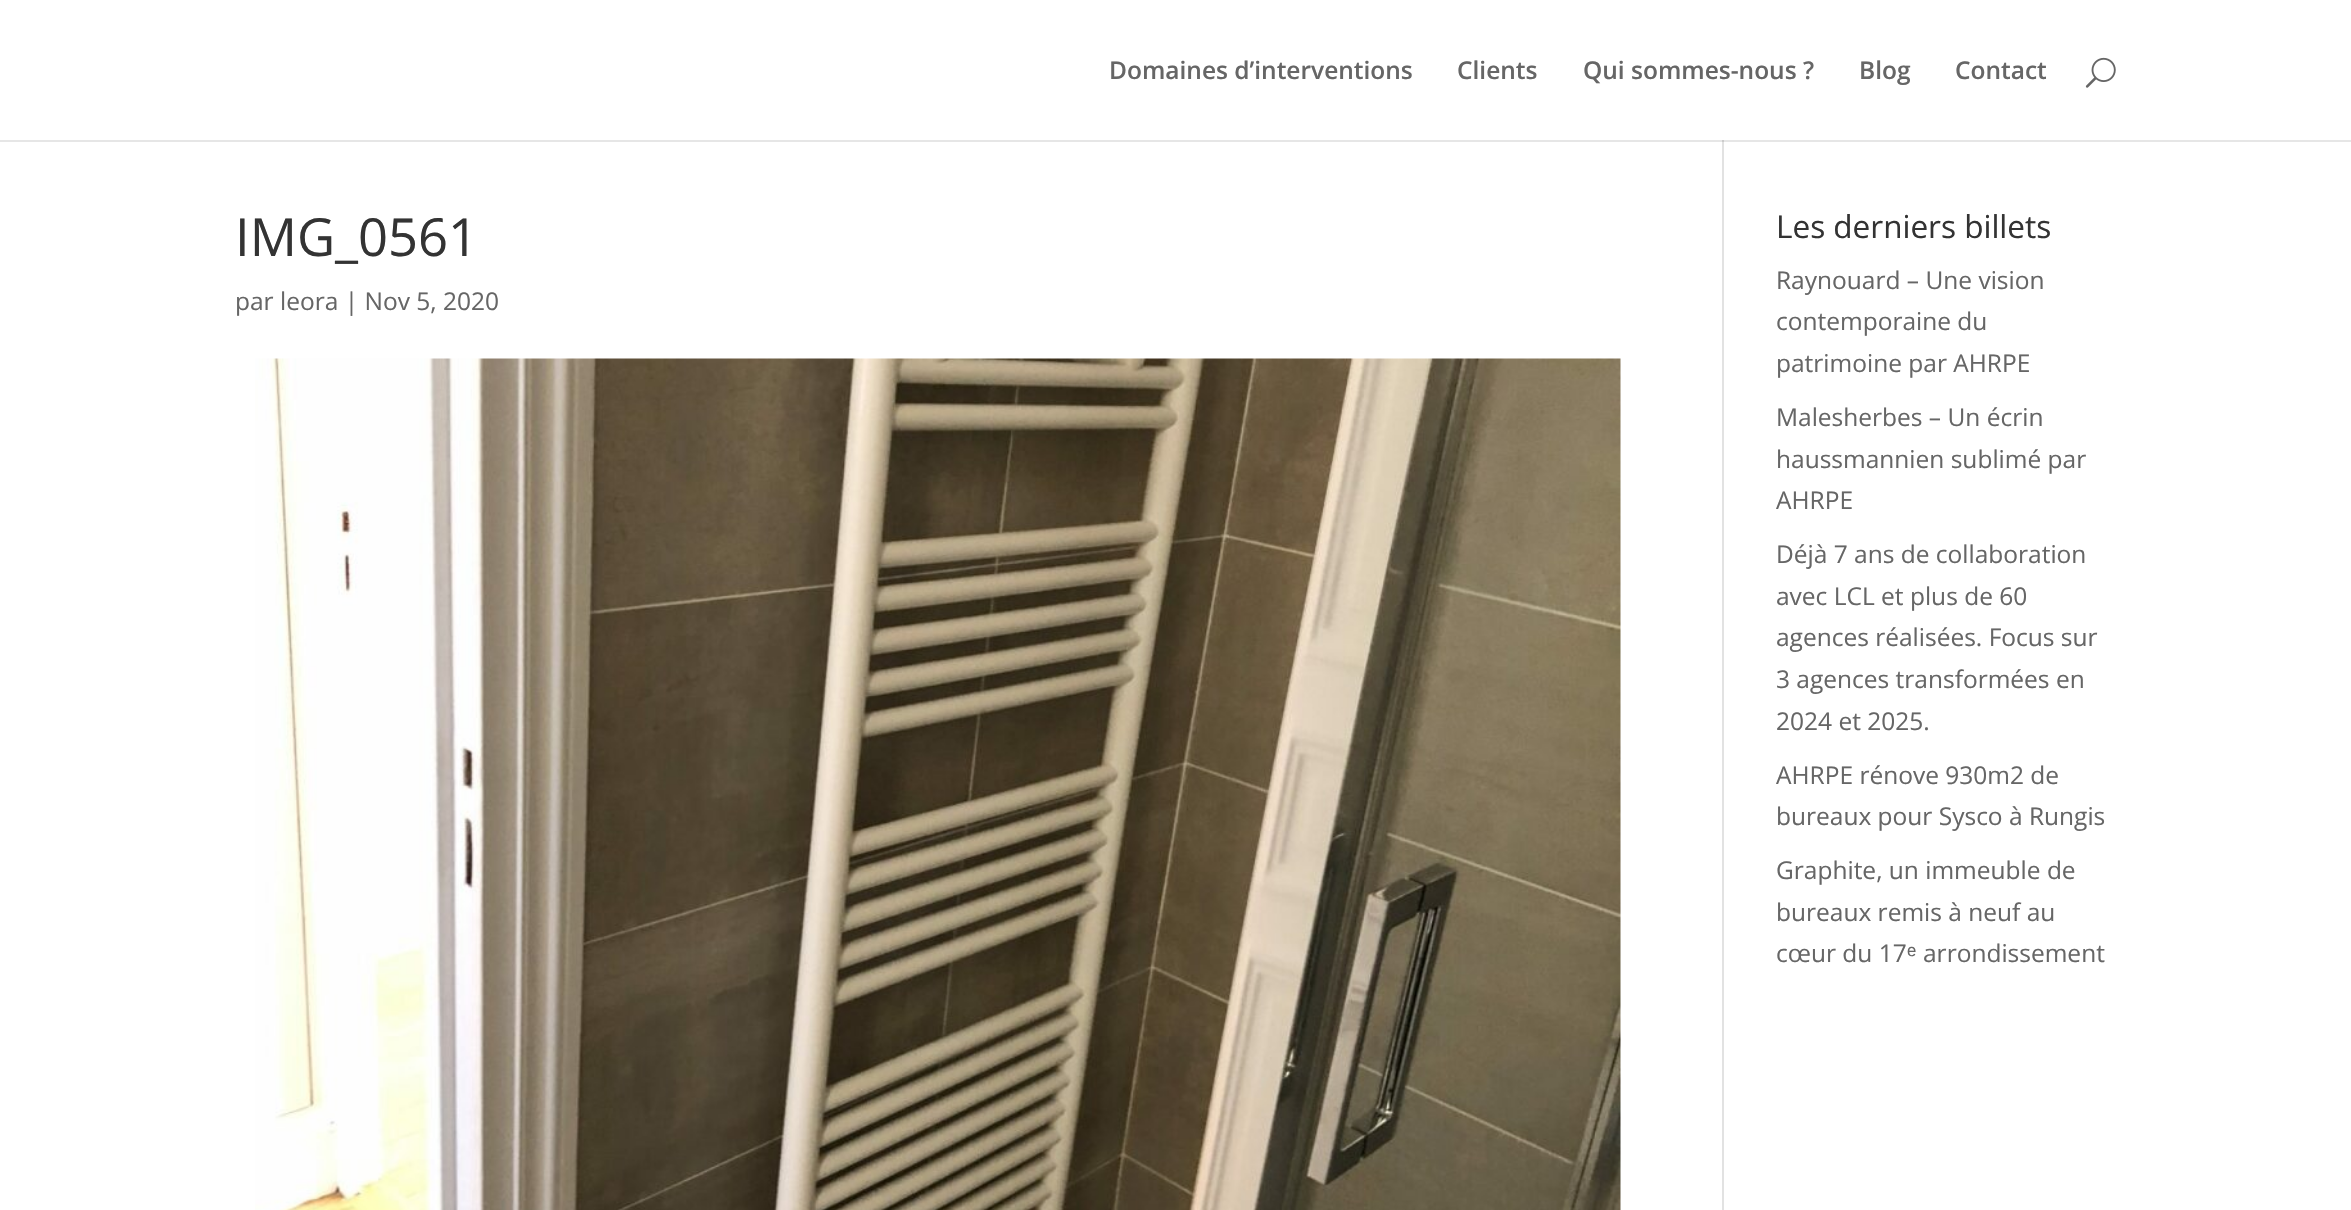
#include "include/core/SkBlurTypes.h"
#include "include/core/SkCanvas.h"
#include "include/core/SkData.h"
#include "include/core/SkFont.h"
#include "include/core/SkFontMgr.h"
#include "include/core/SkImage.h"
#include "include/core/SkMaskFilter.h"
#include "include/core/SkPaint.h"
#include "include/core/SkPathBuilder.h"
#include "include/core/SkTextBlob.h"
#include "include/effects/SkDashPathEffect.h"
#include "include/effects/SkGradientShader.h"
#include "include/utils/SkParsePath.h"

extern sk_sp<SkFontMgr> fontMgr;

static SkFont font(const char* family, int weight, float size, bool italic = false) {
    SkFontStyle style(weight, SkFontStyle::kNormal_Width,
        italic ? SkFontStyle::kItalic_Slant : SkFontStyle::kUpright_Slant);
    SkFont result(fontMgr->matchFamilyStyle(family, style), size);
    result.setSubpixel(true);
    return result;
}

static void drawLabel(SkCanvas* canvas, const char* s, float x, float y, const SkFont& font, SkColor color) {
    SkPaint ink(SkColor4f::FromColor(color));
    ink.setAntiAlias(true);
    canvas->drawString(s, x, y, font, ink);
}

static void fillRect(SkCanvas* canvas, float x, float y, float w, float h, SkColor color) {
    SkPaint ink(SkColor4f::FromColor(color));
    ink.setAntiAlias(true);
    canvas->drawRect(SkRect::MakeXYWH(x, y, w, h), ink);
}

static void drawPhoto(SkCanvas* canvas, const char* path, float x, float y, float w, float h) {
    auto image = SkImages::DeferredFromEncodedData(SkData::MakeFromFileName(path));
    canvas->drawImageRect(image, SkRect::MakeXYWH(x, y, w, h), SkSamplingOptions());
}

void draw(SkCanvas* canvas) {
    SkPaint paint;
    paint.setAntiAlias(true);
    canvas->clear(0xFFFFFFFF);
    SkFont font1 = font("Open Sans", 600, 24.5f);
    drawLabel(canvas, "Domaines d’interventions", 1109, 79, font1, 0xFF666666);
    drawLabel(canvas, "Clients", 1457, 79, font1, 0xFF666666);
    drawLabel(canvas, "Qui sommes-nous ?", 1583, 79, font1, 0xFF666666);
    drawLabel(canvas, "Blog", 1859, 79, font1, 0xFF666666);
    drawLabel(canvas, "Contact", 1955, 79, font1, 0xFF666666);
    drawPhoto(canvas, "assets/img1.png", 2085, 57, 31, 31);
    fillRect(canvas, 0, 140, 2351, 2, 0xFFE6E6E6);
    fillRect(canvas, 1722, 142, 2, 1068, 0xFFE2E2E2);
    fillRect(canvas, 1722, 140, 2, 2, 0xFFCBCBCB);
    SkFont font2 = font("Open Sans", 400, 52.5f);
    drawLabel(canvas, "IMG_0561", 235, 256, font2, 0xFF333333);
    SkFont font3 = font("Open Sans", 400, 24.5f);
    drawLabel(canvas, "par leora | Nov 5, 2020", 235, 310, font3, 0xFF666666);
    drawPhoto(canvas, "assets/img2.png", 255, 358, 1366, 852);
    SkFont font4 = font("Open Sans", 400, 31.5f);
    drawLabel(canvas, "Les derniers billets", 1776, 238, font4, 0xFF333333);
    drawLabel(canvas, "Raynouard – Une vision", 1776, 289, font3, 0xFF666666);
    drawLabel(canvas, "contemporaine du", 1776, 330, font3, 0xFF666666);
    drawLabel(canvas, "patrimoine par AHRPE", 1776, 372, font3, 0xFF666666);
    drawLabel(canvas, "Malesherbes – Un écrin", 1776, 426, font3, 0xFF666666);
    drawLabel(canvas, "haussmannien sublimé par", 1776, 468, font3, 0xFF666666);
    drawLabel(canvas, "AHRPE", 1776, 509, font3, 0xFF666666);
    drawLabel(canvas, "Déjà 7 ans de collaboration", 1776, 563, font3, 0xFF666666);
    drawLabel(canvas, "avec LCL et plus de 60", 1776, 605, font3, 0xFF666666);
    drawLabel(canvas, "agences réalisées. Focus sur", 1776, 646, font3, 0xFF666666);
    drawLabel(canvas, "3 agences transformées en", 1776, 688, font3, 0xFF666666);
    drawLabel(canvas, "2024 et 2025.", 1776, 730, font3, 0xFF666666);
    drawLabel(canvas, "AHRPE rénove 930m2 de", 1776, 784, font3, 0xFF666666);
    drawLabel(canvas, "bureaux pour Sysco à Rungis", 1776, 825, font3, 0xFF666666);
    drawLabel(canvas, "Graphite, un immeuble de", 1776, 879, font3, 0xFF666666);
    drawLabel(canvas, "bureaux remis à neuf au", 1776, 921, font3, 0xFF666666);
    drawLabel(canvas, "cœur du 17", 1776, 962, font3, 0xFF666666);
    SkFont font5 = font("Liberation Sans", 400, 24.5f);
    drawLabel(canvas, "ᵉ", 1907, 962, font5, 0xFF666666);
    drawLabel(canvas, "arrondissement", 1923, 962, font3, 0xFF666666);
}
